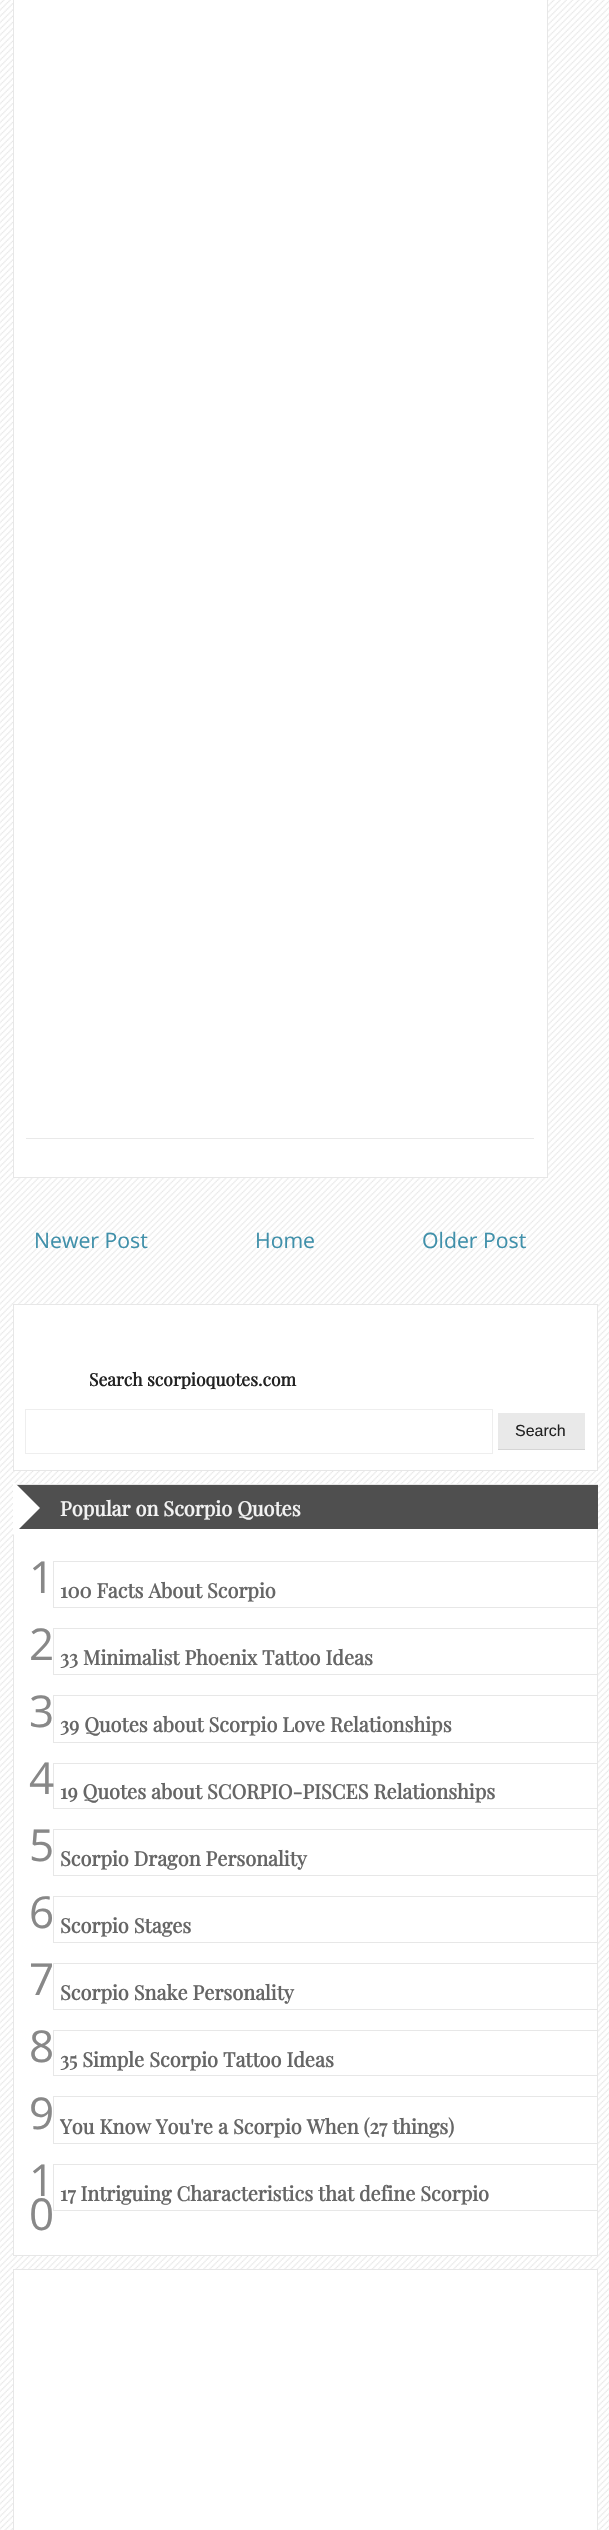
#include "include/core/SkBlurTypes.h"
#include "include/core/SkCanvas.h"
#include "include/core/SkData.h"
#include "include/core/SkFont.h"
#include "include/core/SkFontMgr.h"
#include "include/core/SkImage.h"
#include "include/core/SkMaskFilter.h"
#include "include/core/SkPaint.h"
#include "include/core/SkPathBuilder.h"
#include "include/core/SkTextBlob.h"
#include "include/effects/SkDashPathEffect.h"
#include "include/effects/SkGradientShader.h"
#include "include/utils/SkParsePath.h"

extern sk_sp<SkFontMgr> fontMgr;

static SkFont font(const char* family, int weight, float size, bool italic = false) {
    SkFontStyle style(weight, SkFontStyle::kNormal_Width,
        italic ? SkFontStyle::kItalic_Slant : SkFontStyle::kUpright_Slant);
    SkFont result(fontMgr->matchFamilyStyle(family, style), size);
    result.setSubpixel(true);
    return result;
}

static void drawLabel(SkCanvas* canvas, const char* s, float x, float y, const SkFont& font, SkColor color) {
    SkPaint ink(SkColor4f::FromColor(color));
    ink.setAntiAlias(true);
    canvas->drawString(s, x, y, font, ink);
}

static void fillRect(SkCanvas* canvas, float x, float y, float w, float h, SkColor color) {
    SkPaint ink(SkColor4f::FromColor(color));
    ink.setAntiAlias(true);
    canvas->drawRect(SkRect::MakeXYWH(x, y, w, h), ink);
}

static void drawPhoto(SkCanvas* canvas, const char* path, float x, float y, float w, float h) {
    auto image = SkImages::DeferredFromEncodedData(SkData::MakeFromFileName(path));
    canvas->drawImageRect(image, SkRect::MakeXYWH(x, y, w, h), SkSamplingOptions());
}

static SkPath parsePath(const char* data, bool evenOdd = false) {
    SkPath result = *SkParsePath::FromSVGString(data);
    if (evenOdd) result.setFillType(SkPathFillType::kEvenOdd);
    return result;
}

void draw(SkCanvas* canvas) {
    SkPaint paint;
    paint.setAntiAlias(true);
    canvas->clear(0xFFFFFFFF);
    drawPhoto(canvas, "assets/img1.png", 0, 0, 609, 2530);
    paint.setColor(0xFFFFFFFF);
    canvas->drawRect(SkRect::MakeXYWH(13.5f, -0.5f, 534, 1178), paint);
    paint.setStroke(true);
    paint.setStrokeWidth(1);
    paint.setColor(0xFFE7E7E7);
    canvas->drawRect(SkRect::MakeXYWH(13.5f, -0.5f, 534, 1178), paint);
    fillRect(canvas, 26, 1138, 508, 1, 0xFFE9E9E9);
    SkFont font1 = font("Open Sans", 400, 21.25f);
    drawLabel(canvas, "Newer Post", 34, 1248, font1, 0xFF4090AA);
    drawLabel(canvas, "Home", 255, 1248, font1, 0xFF4090AA);
    drawLabel(canvas, "Older Post", 422, 1248, font1, 0xFF4090AA);
    paint.setStroke(false);
    paint.setColor(0xFFFFFFFF);
    canvas->drawRect(SkRect::MakeXYWH(13.5f, 1304.5f, 584, 166), paint);
    paint.setStroke(true);
    paint.setColor(0xFFE7E7E7);
    canvas->drawRect(SkRect::MakeXYWH(13.5f, 1304.5f, 584, 166), paint);
    SkFont font2 = font("Playfair Display", 700, 17.5f);
    drawLabel(canvas, "Search scorpioquotes.com", 89, 1386, font2, 0xFF222222);
    paint.setColor(0xFFEEEEEE);
    canvas->drawRect(SkRect::MakeXYWH(25.5f, 1409.5f, 467, 44), paint);
    fillRect(canvas, 498, 1413, 87, 36, 0xFFE9E9E9);
    fillRect(canvas, 498, 1449, 87, 1, 0xFFD5D5D5);
    SkFont font3 = font("Liberation Sans", 400, 16);
    drawLabel(canvas, "Search", 515, 1436, font3, 0xFF222222);
    fillRect(canvas, 14, 1529, 583, 726, 0xFFFFFFFF);
    paint.setColor(0xFFE7E7E7);
    canvas->drawRect(SkRect::MakeXYWH(13.5f, 1484.5f, 584, 771), paint);
    fillRect(canvas, 17, 1485, 581, 44, 0xFF4F4F4F);
    canvas->save();
    canvas->clipRect(SkRect::MakeXYWH(13, 1304, 585, 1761));
    paint.setStroke(false);
    paint.setColor(0xFFFFFFFF);
    canvas->drawPath(parsePath("M10 1538V1478L40 1508Z"), paint);
    canvas->restore();
    SkFont font4 = font("Playfair Display", 700, 20);
    drawLabel(canvas, "Popular on Scorpio Quotes", 60, 1516, font4, 0xFFF2F2F2);
    canvas->save();
    canvas->clipRect(SkRect::MakeXYWH(13, 1304, 585, 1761));
    paint.setStroke(true);
    paint.setColor(0xFFE7E7E7);
    canvas->drawRect(SkRect::MakeXYWH(53.5f, 1561.5f, 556, 46), paint);
    canvas->restore();
    SkFont font5 = font("Open Sans", 400, 44);
    drawLabel(canvas, "1", 29, 1593, font5, 0xFF888888);
    drawLabel(canvas, "100 Facts About Scorpio", 60, 1598, font4, 0xFF666666);
    canvas->save();
    canvas->clipRect(SkRect::MakeXYWH(13, 1304, 585, 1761));
    canvas->drawRect(SkRect::MakeXYWH(53.5f, 1628.5f, 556, 46), paint);
    canvas->restore();
    drawLabel(canvas, "2", 29, 1660, font5, 0xFF888888);
    drawLabel(canvas, "33 Minimalist Phoenix Tattoo Ideas", 60, 1665, font4, 0xFF666666);
    canvas->save();
    canvas->clipRect(SkRect::MakeXYWH(13, 1304, 585, 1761));
    canvas->drawRect(SkRect::MakeXYWH(53.5f, 1695.5f, 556, 47), paint);
    canvas->restore();
    drawLabel(canvas, "3", 29, 1727, font5, 0xFF888888);
    drawLabel(canvas, "39 Quotes about Scorpio Love Relationships", 60, 1732, font4, 0xFF666666);
    canvas->save();
    canvas->clipRect(SkRect::MakeXYWH(13, 1304, 585, 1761));
    canvas->drawRect(SkRect::MakeXYWH(53.5f, 1763.5f, 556, 45), paint);
    canvas->restore();
    drawLabel(canvas, "4", 29, 1794, font5, 0xFF888888);
    drawLabel(canvas, "19 Quotes about SCORPIO-PISCES Relationships", 60, 1799, font4, 0xFF666666);
    canvas->save();
    canvas->clipRect(SkRect::MakeXYWH(13, 1304, 585, 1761));
    canvas->drawRect(SkRect::MakeXYWH(53.5f, 1829.5f, 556, 46), paint);
    canvas->restore();
    drawLabel(canvas, "5", 29, 1861, font5, 0xFF888888);
    drawLabel(canvas, "Scorpio Dragon Personality", 60, 1866, font4, 0xFF666666);
    canvas->save();
    canvas->clipRect(SkRect::MakeXYWH(13, 1304, 585, 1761));
    canvas->drawRect(SkRect::MakeXYWH(53.5f, 1896.5f, 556, 46), paint);
    canvas->restore();
    drawLabel(canvas, "6", 29, 1928, font5, 0xFF888888);
    drawLabel(canvas, "Scorpio Stages", 60, 1933, font4, 0xFF666666);
    canvas->save();
    canvas->clipRect(SkRect::MakeXYWH(13, 1304, 585, 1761));
    canvas->drawRect(SkRect::MakeXYWH(53.5f, 1963.5f, 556, 46), paint);
    canvas->restore();
    drawLabel(canvas, "7", 29, 1995, font5, 0xFF888888);
    drawLabel(canvas, "Scorpio Snake Personality", 60, 2000, font4, 0xFF666666);
    canvas->save();
    canvas->clipRect(SkRect::MakeXYWH(13, 1304, 585, 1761));
    canvas->drawRect(SkRect::MakeXYWH(53.5f, 2030.5f, 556, 45), paint);
    canvas->restore();
    drawLabel(canvas, "8", 29, 2062, font5, 0xFF888888);
    drawLabel(canvas, "35 Simple Scorpio Tattoo Ideas", 60, 2067, font4, 0xFF666666);
    canvas->save();
    canvas->clipRect(SkRect::MakeXYWH(13, 1304, 585, 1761));
    canvas->drawRect(SkRect::MakeXYWH(53.5f, 2096.5f, 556, 47), paint);
    canvas->restore();
    drawLabel(canvas, "9", 29, 2129, font5, 0xFF888888);
    drawLabel(canvas, "You Know You're a Scorpio When (27 things)", 60, 2134, font4, 0xFF666666);
    canvas->save();
    canvas->clipRect(SkRect::MakeXYWH(13, 1304, 585, 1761));
    canvas->drawRect(SkRect::MakeXYWH(53.5f, 2164.5f, 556, 46), paint);
    canvas->restore();
    drawLabel(canvas, "1", 29, 2196, font5, 0xFF888888);
    drawLabel(canvas, "0", 29, 2230, font5, 0xFF888888);
    drawLabel(canvas, "17 Intriguing Characteristics that define Scorpio", 60, 2201, font4, 0xFF666666);
    paint.setStroke(false);
    paint.setColor(0xFFFFFFFF);
    canvas->drawRect(SkRect::MakeXYWH(13.5f, 2269.5f, 584, 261), paint);
    paint.setStroke(true);
    paint.setColor(0xFFE7E7E7);
    canvas->drawRect(SkRect::MakeXYWH(13.5f, 2269.5f, 584, 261), paint);
}
